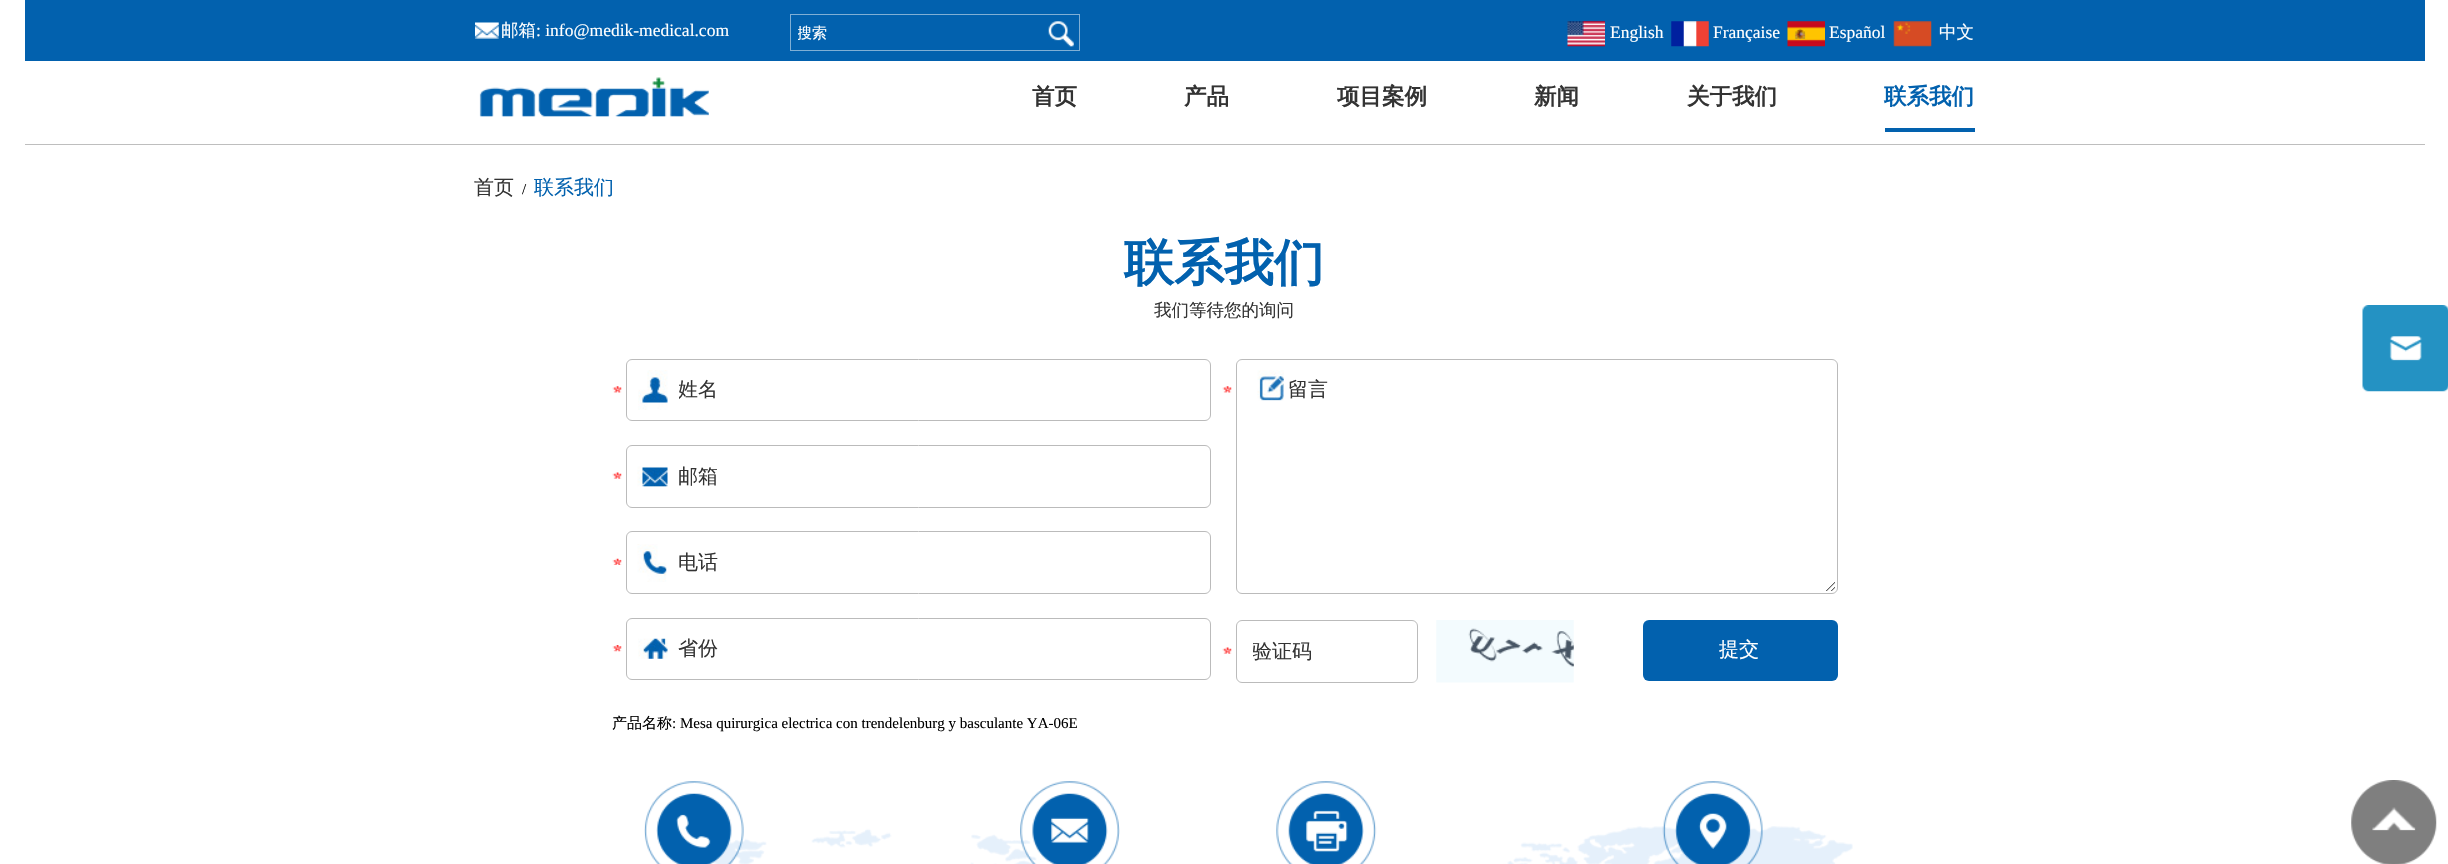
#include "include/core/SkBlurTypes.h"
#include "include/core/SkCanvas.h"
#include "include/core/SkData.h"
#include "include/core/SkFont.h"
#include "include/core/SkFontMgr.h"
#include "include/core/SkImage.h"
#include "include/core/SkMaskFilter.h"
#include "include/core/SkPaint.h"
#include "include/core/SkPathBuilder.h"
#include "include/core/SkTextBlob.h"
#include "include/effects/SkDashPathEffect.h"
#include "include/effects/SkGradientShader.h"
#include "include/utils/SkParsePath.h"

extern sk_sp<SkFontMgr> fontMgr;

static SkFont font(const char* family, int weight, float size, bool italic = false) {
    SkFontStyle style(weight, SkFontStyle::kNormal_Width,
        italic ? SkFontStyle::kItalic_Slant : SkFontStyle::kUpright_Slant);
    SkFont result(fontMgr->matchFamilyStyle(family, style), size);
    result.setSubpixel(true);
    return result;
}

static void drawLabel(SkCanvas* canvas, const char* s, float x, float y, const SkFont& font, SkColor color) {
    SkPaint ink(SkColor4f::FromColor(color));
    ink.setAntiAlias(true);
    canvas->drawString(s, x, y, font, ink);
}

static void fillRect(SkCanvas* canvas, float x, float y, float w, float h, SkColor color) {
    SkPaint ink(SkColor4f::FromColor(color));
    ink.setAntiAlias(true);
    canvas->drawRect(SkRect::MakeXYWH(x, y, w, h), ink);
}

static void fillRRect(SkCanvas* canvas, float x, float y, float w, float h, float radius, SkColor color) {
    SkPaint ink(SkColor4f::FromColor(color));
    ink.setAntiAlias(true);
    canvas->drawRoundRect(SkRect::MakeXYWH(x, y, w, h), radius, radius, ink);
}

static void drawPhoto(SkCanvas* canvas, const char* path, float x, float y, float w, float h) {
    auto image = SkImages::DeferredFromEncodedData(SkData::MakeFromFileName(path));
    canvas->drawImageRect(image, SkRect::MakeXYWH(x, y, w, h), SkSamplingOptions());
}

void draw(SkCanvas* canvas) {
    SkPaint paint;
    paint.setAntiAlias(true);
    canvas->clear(0xFFFFFFFF);
    fillRect(canvas, 25, 0, 2400, 61, 0xFF0261AE);
    drawPhoto(canvas, "assets/img1.png", 475, 22, 24, 17);
    SkFont font1 = font("WenQuanYi Zen Hei", 500, 17.5f);
    drawLabel(canvas, "邮箱", 501, 36, font1, 0xFFFFFFFF);
    SkFont font2 = font("Liberation Serif", 400, 17.5f);
    drawLabel(canvas, ": info@medik-medical.com", 536, 36, font2, 0xFFFFFFFF);
    paint.setStroke(true);
    paint.setStrokeWidth(1);
    paint.setColor(0xFF80AFD5);
    canvas->drawRect(SkRect::MakeXYWH(790.5f, 14.5f, 289, 36), paint);
    canvas->save();
    canvas->clipRect(SkRect::MakeXYWH(798, 23, 258, 21));
    SkFont font3 = font("WenQuanYi Zen Hei", 500, 15);
    drawLabel(canvas, "搜索", 797, 38, font3, 0xFFFFFFFF);
    canvas->restore();
    drawPhoto(canvas, "assets/img2.png", 1048, 21, 26, 26);
    drawPhoto(canvas, "assets/img3.png", 1567, 21, 38, 26);
    drawLabel(canvas, "English", 1610, 38, font2, 0xFFFFFFFF);
    drawPhoto(canvas, "assets/img4.png", 1671, 21, 38, 26);
    drawLabel(canvas, "Française", 1713, 38, font2, 0xFFFFFFFF);
    drawPhoto(canvas, "assets/img5.png", 1787, 21, 38, 26);
    drawLabel(canvas, "Español", 1829, 38, font2, 0xFFFFFFFF);
    drawPhoto(canvas, "assets/img6.png", 1893, 21, 39, 26);
    drawLabel(canvas, "中文", 1939, 38, font1, 0xFFFFFFFF);
    drawPhoto(canvas, "assets/img7.png", 479, 77, 230, 40);
    SkFont font4 = font("WenQuanYi Zen Hei", 700, 22.5f);
    drawLabel(canvas, "首页", 1032, 104, font4, 0xFF333333);
    drawLabel(canvas, "产品", 1184, 104, font4, 0xFF333333);
    drawLabel(canvas, "项目案例", 1337, 104, font4, 0xFF333333);
    drawLabel(canvas, "新闻", 1534, 104, font4, 0xFF333333);
    drawLabel(canvas, "关于我们", 1687, 104, font4, 0xFF333333);
    drawLabel(canvas, "联系我们", 1884, 104, font4, 0xFF0261AE);
    fillRect(canvas, 1885, 128, 90, 4, 0xFF0261AE);
    fillRect(canvas, 25, 144, 2400, 1, 0xFFBEBEBE);
    SkFont font5 = font("WenQuanYi Zen Hei", 500, 20);
    drawLabel(canvas, "首页", 474, 194, font5, 0xFF333333);
    SkFont font6 = font("Liberation Serif", 400, 15);
    drawLabel(canvas, "/", 522, 194, font6, 0xFF000000);
    drawLabel(canvas, "联系我们", 534, 194, font5, 0xFF0261AE);
    SkFont font7 = font("WenQuanYi Zen Hei", 700, 50);
    drawLabel(canvas, "联系我们", 1124, 280, font7, 0xFF0261AE);
    drawLabel(canvas, "我们等待您的询问", 1154, 316, font1, 0xFF333333);
    drawPhoto(canvas, "assets/img8.png", 612, 386, 10, 7);
    drawPhoto(canvas, "assets/img9.png", 638, 370, 30, 40);
    paint.setColor(0xFFBBBBBB);
    canvas->drawRoundRect(SkRect::MakeXYWH(626.5f, 359.5f, 584, 61), 5.5f, 5.5f, paint);
    canvas->save();
    canvas->clipRect(SkRect::MakeXYWH(679, 378, 531, 26));
    drawLabel(canvas, "姓名", 678, 396, font5, 0xFF333333);
    canvas->restore();
    drawPhoto(canvas, "assets/img10.png", 612, 472, 10, 7);
    drawPhoto(canvas, "assets/img11.png", 637, 466, 31, 21);
    canvas->drawRoundRect(SkRect::MakeXYWH(626.5f, 445.5f, 584, 62), 5.5f, 5.5f, paint);
    drawLabel(canvas, "邮箱", 678, 483, font5, 0xFF333333);
    drawPhoto(canvas, "assets/img12.png", 612, 558, 10, 7);
    drawPhoto(canvas, "assets/img13.png", 637, 544, 30, 38);
    canvas->drawRoundRect(SkRect::MakeXYWH(626.5f, 531.5f, 584, 62), 5.5f, 5.5f, paint);
    drawLabel(canvas, "电话", 678, 569, font5, 0xFF333333);
    drawPhoto(canvas, "assets/img14.png", 612, 645, 10, 7);
    drawPhoto(canvas, "assets/img15.png", 638, 638, 30, 21);
    canvas->drawRoundRect(SkRect::MakeXYWH(626.5f, 618.5f, 584, 61), 5.5f, 5.5f, paint);
    drawLabel(canvas, "省份", 678, 655, font5, 0xFF333333);
    drawPhoto(canvas, "assets/img8.png", 1222, 386, 10, 7);
    drawPhoto(canvas, "assets/img16.png", 1257, 370, 578, 221);
    canvas->drawRoundRect(SkRect::MakeXYWH(1236.5f, 359.5f, 601, 234), 5.5f, 5.5f, paint);
    drawLabel(canvas, "留言", 1288, 396, font5, 0xFF333333);
    drawPhoto(canvas, "assets/img10.png", 1222, 647, 10, 7);
    canvas->drawRoundRect(SkRect::MakeXYWH(1236.5f, 620.5f, 181, 62), 5.5f, 5.5f, paint);
    canvas->save();
    canvas->clipRect(SkRect::MakeXYWH(1253, 639, 163, 26));
    drawLabel(canvas, "验证码", 1252, 658, font5, 0xFF333333);
    canvas->restore();
    drawPhoto(canvas, "assets/img17.png", 1436, 620, 138, 63);
    fillRRect(canvas, 1643, 620, 195, 61, 6, 0xFF0261AE);
    drawLabel(canvas, "提交", 1719, 656, font5, 0xFFFFFFFF);
    drawLabel(canvas, "产品名称", 612, 728, font3, 0xFF000000);
    drawLabel(canvas, ": Mesa quirurgica electrica con trendelenburg y basculante YA-06E", 672, 728, font6, 0xFF000000);
    drawPhoto(canvas, "assets/img18.png", 713, 826, 1140, 38);
    drawPhoto(canvas, "assets/img19.png", 644, 781, 100, 83);
    drawPhoto(canvas, "assets/img20.png", 1020, 781, 100, 83);
    drawPhoto(canvas, "assets/img21.png", 1276, 781, 101, 83);
    drawPhoto(canvas, "assets/img22.png", 1662, 781, 101, 83);
    drawPhoto(canvas, "assets/img23.png", 2362, 305, 86, 87);
    drawPhoto(canvas, "assets/img24.png", 2351, 780, 86, 84);
}
